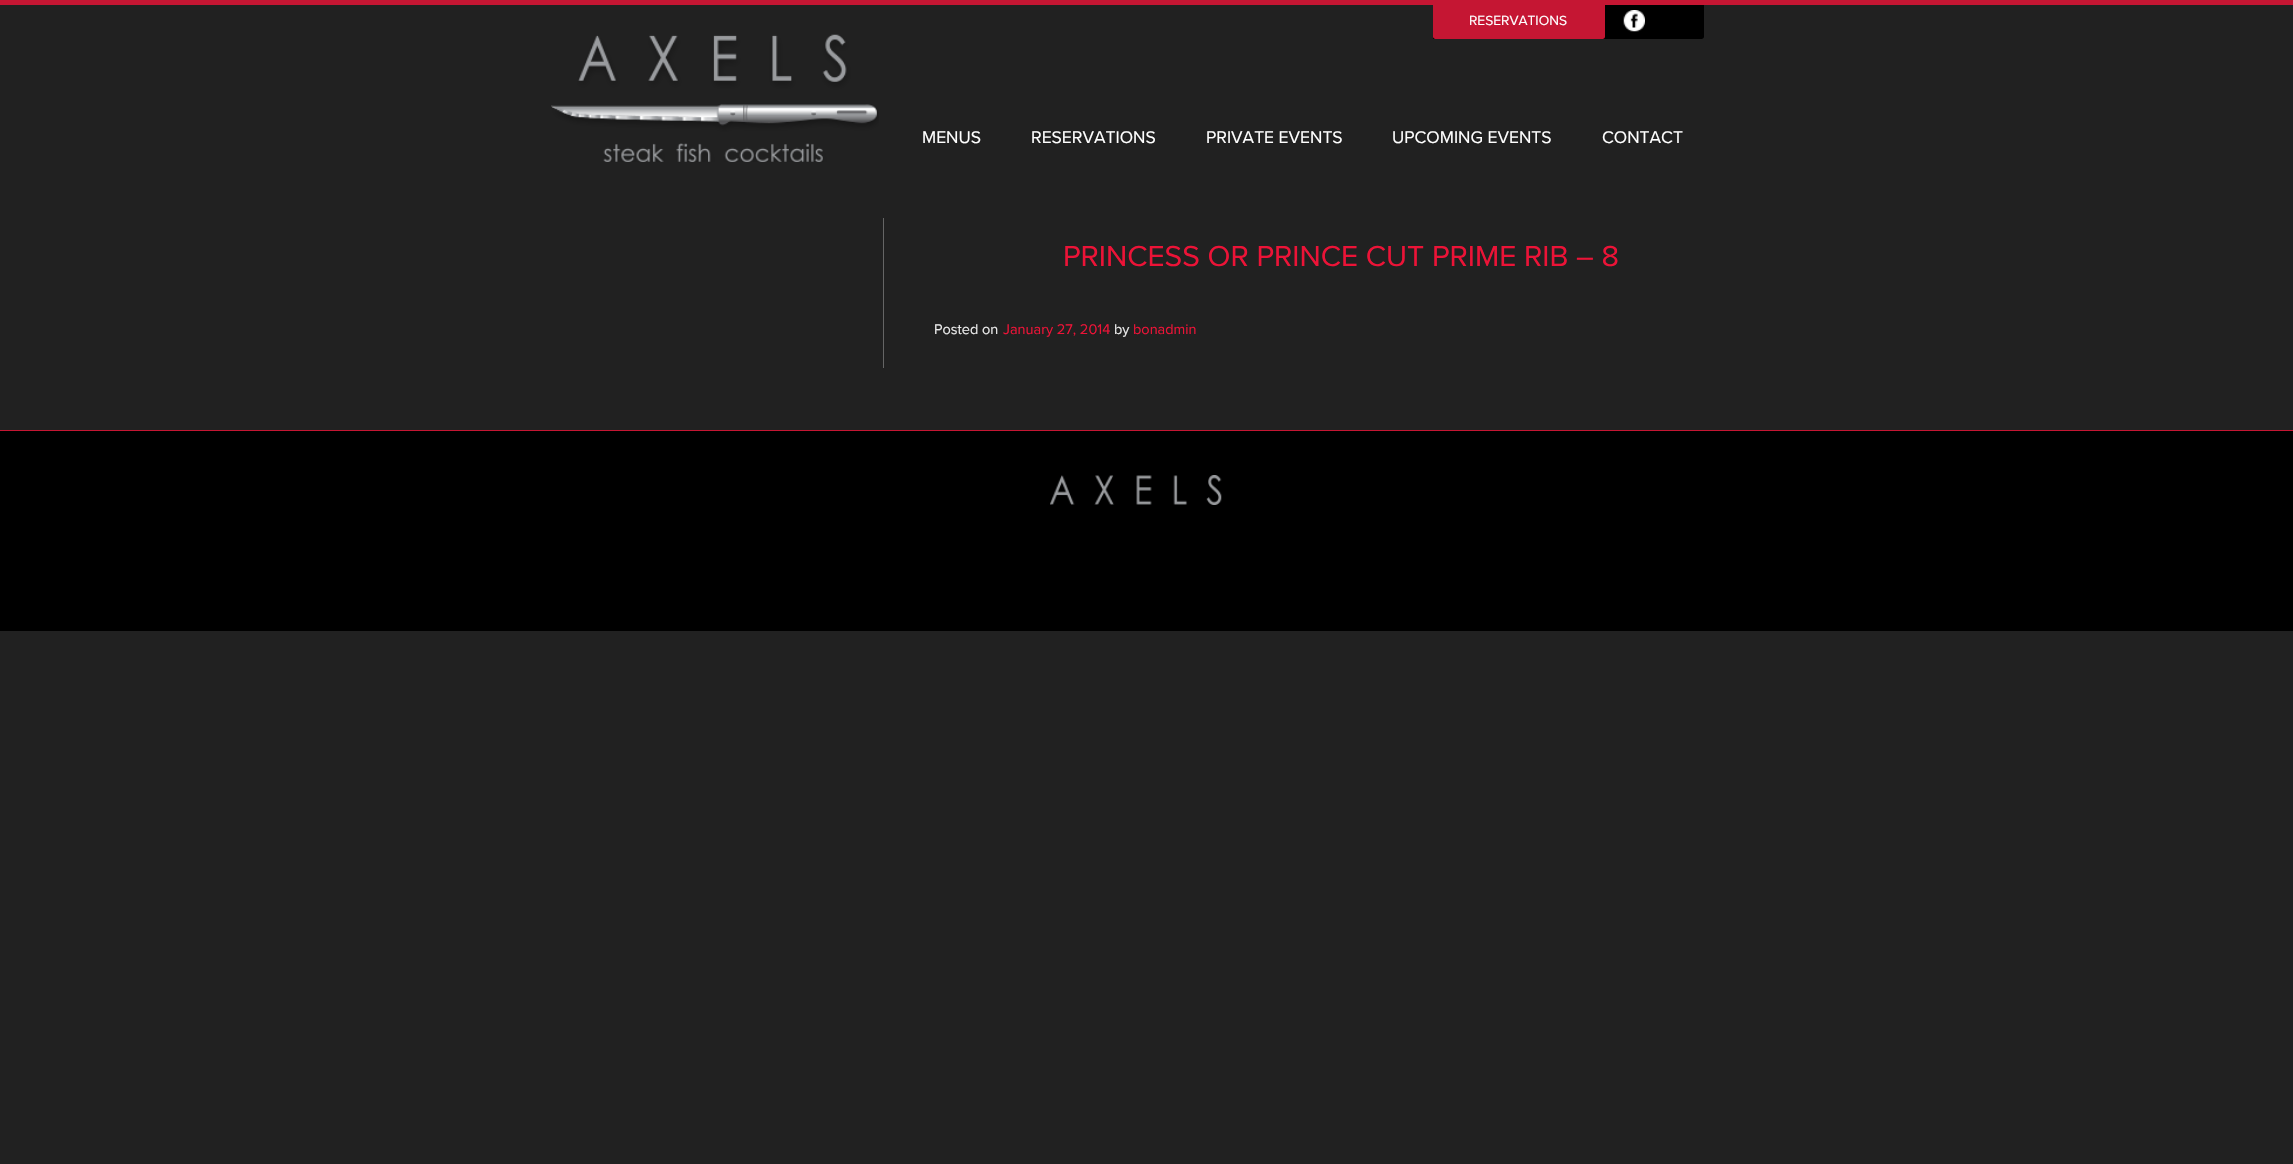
#include "include/core/SkBlurTypes.h"
#include "include/core/SkCanvas.h"
#include "include/core/SkData.h"
#include "include/core/SkFont.h"
#include "include/core/SkFontMgr.h"
#include "include/core/SkImage.h"
#include "include/core/SkMaskFilter.h"
#include "include/core/SkPaint.h"
#include "include/core/SkPathBuilder.h"
#include "include/core/SkTextBlob.h"
#include "include/effects/SkDashPathEffect.h"
#include "include/effects/SkGradientShader.h"
#include "include/utils/SkParsePath.h"

extern sk_sp<SkFontMgr> fontMgr;

static SkFont font(const char* family, int weight, float size, bool italic = false) {
    SkFontStyle style(weight, SkFontStyle::kNormal_Width,
        italic ? SkFontStyle::kItalic_Slant : SkFontStyle::kUpright_Slant);
    SkFont result(fontMgr->matchFamilyStyle(family, style), size);
    result.setSubpixel(true);
    return result;
}

static void drawLabel(SkCanvas* canvas, const char* s, float x, float y, const SkFont& font, SkColor color) {
    SkPaint ink(SkColor4f::FromColor(color));
    ink.setAntiAlias(true);
    canvas->drawString(s, x, y, font, ink);
}

static void fillRect(SkCanvas* canvas, float x, float y, float w, float h, SkColor color) {
    SkPaint ink(SkColor4f::FromColor(color));
    ink.setAntiAlias(true);
    canvas->drawRect(SkRect::MakeXYWH(x, y, w, h), ink);
}

static void drawPhoto(SkCanvas* canvas, const char* path, float x, float y, float w, float h) {
    auto image = SkImages::DeferredFromEncodedData(SkData::MakeFromFileName(path));
    canvas->drawImageRect(image, SkRect::MakeXYWH(x, y, w, h), SkSamplingOptions());
}

static SkPath parsePath(const char* data, bool evenOdd = false) {
    SkPath result = *SkParsePath::FromSVGString(data);
    if (evenOdd) result.setFillType(SkPathFillType::kEvenOdd);
    return result;
}

void draw(SkCanvas* canvas) {
    SkPaint paint;
    paint.setAntiAlias(true);
    canvas->clear(0xFF212121);
    fillRect(canvas, 0, 0, 2293, 5, 0xFFC51633);
    paint.setColor(0xFF000000);
    canvas->drawPath(parsePath("M1433 5H1704V36.5C1704 38 1703 39 1701.5 39H1433Z"), paint);
    paint.setColor(0xFFC51633);
    canvas->drawPath(parsePath("M1433 5H1605V36.5C1605 38 1604 39 1602.5 39H1435.5C1434 39 1433 38 1433 36.5Z"), paint);
    SkFont font1 = font("Proxima Nova", 400, 13.75f);
    drawLabel(canvas, "RESERVATIONS", 1469, 25, font1, 0xFFFFFFFF);
    drawPhoto(canvas, "assets/img1.png", 1623, 10, 22, 22);
    drawPhoto(canvas, "assets/img2.png", 551, 34, 328, 128);
    SkFont font2 = font("Proxima Nova", 400, 17.5f);
    drawLabel(canvas, "MENUS", 922, 143, font2, 0xFFFFFFFF);
    drawLabel(canvas, "RESERVATIONS", 1031, 143, font2, 0xFFFFFFFF);
    drawLabel(canvas, "PRIVATE EVENTS", 1206, 143, font2, 0xFFFFFFFF);
    drawLabel(canvas, "UPCOMING EVENTS", 1392, 143, font2, 0xFFFFFFFF);
    drawLabel(canvas, "CONTACT", 1602, 143, font2, 0xFFFFFFFF);
    fillRect(canvas, 883, 218, 1, 150, 0xFF656565);
    SkFont font3 = font("Proxima Nova", 400, 30);
    drawLabel(canvas, "PRINCESS OR PRINCE CUT PRIME RIB – 8", 1063, 266, font3, 0xFFEC1337);
    SkFont font4 = font("Proxima Nova", 400, 14.5f);
    drawLabel(canvas, "Posted on", 934, 334, font4, 0xFFE9E9E9);
    drawLabel(canvas, "January 27, 2014", 1003, 334, font4, 0xFFEC1337);
    drawLabel(canvas, "by", 1114, 334, font4, 0xFFE9E9E9);
    drawLabel(canvas, "bonadmin", 1133, 334, font4, 0xFFEC1337);
    fillRect(canvas, 0, 431, 2293, 200, 0xFF000000);
    fillRect(canvas, 0, 430, 2293, 1, 0xFFC51633);
    drawPhoto(canvas, "assets/img3.png", 1050, 475, 172, 30);
}
